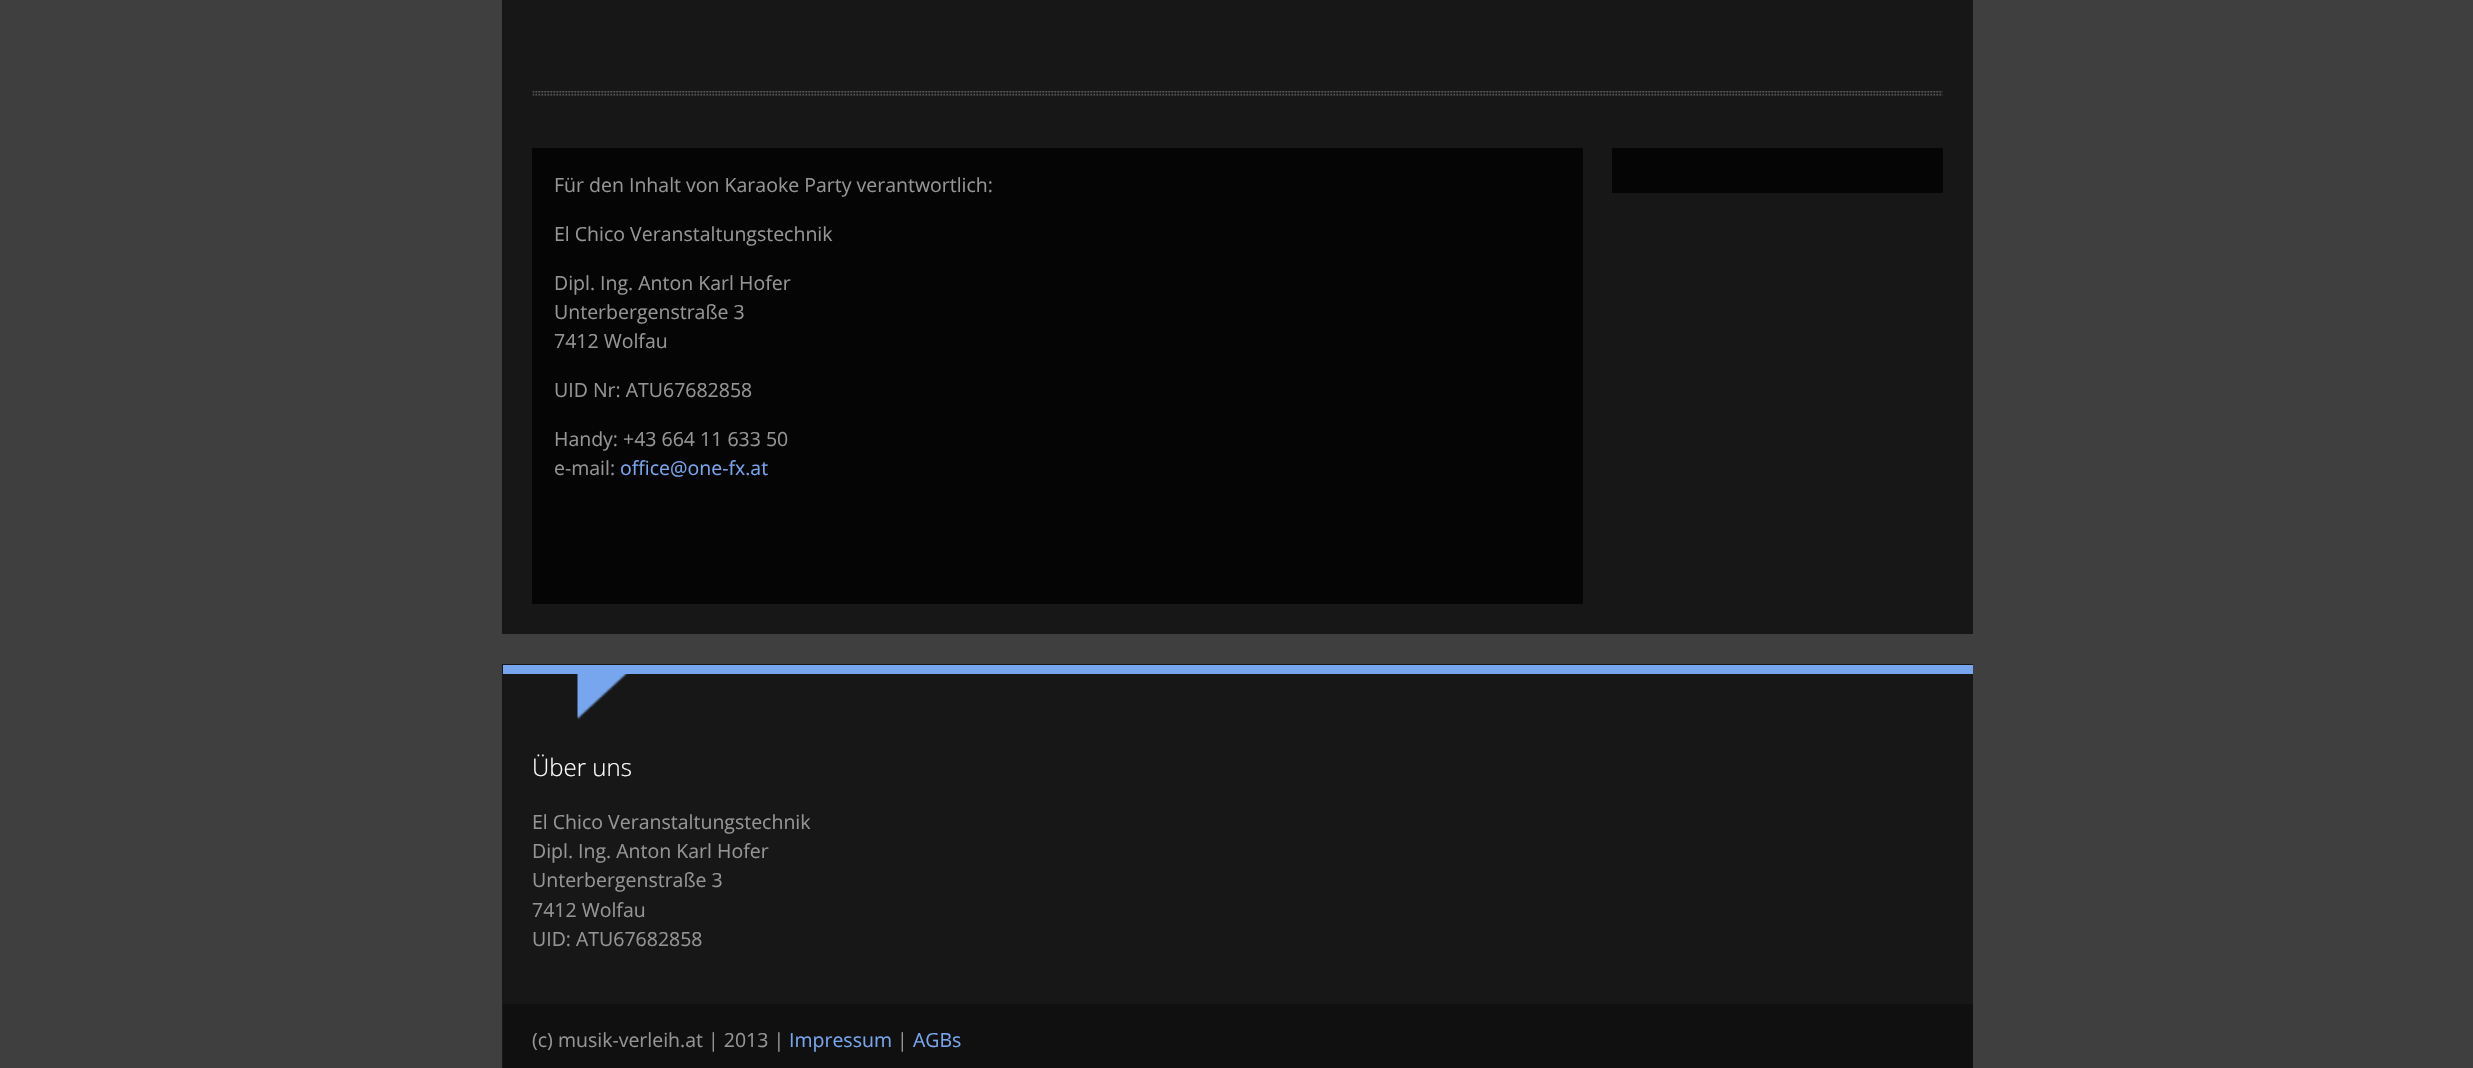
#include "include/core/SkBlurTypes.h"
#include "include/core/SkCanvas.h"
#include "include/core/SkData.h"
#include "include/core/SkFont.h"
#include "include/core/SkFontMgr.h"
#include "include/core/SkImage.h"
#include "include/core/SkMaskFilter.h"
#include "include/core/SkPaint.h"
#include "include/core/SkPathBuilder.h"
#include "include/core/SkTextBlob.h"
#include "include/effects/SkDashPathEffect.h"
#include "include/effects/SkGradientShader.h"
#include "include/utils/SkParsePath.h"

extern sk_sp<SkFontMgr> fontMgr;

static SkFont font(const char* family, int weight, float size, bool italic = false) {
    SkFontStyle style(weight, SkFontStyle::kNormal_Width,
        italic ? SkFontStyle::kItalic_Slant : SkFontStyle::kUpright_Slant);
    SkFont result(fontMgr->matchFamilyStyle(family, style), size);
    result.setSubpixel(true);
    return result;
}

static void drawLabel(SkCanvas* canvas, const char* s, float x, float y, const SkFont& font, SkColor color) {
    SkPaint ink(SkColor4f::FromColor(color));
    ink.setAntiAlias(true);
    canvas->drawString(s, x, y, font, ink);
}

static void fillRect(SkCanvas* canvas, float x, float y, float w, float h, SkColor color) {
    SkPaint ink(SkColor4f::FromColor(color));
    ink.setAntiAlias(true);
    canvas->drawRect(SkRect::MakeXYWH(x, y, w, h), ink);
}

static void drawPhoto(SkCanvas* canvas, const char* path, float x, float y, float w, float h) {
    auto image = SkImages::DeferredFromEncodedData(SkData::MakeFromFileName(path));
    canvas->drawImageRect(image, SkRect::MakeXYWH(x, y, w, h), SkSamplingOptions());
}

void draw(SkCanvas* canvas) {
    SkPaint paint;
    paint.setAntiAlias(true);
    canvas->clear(0xFF3F3F3F);
    fillRect(canvas, 502, 0, 1471, 634, 0xFF171717);
    drawPhoto(canvas, "assets/img1.png", 532, 91, 1411, 5);
    fillRect(canvas, 1612, 148, 331, 45, 0xFF050505);
    fillRect(canvas, 532, 148, 1051, 456, 0xFF050505);
    SkFont font1 = font("Open Sans", 400, 19.5f);
    drawLabel(canvas, "Für den Inhalt von Karaoke Party verantwortlich:", 554, 192, font1, 0xFF959595);
    drawLabel(canvas, "El Chico Veranstaltungstechnik", 554, 241, font1, 0xFF959595);
    drawLabel(canvas, "Dipl. Ing. Anton Karl Hofer", 554, 290, font1, 0xFF959595);
    drawLabel(canvas, "Unterbergenstraße 3", 554, 319, font1, 0xFF959595);
    drawLabel(canvas, "7412 Wolfau", 554, 348, font1, 0xFF959595);
    drawLabel(canvas, "UID Nr: ATU67682858", 554, 397, font1, 0xFF959595);
    drawLabel(canvas, "Handy: +43 664 11 633 50", 554, 446, font1, 0xFF959595);
    drawLabel(canvas, "e-mail:", 554, 475, font1, 0xFF959595);
    drawLabel(canvas, "office@one-fx.at", 620, 475, font1, 0xFF77A6EE);
    fillRect(canvas, 502, 664, 1471, 404, 0xFF171717);
    fillRect(canvas, 503, 665, 1470, 9, 0xFF77A6EE);
    drawPhoto(canvas, "assets/img2.png", 577, 674, 51, 46);
    SkFont font2 = font("Open Sans", 300, 24);
    drawLabel(canvas, "Über uns", 532, 776, font2, 0xFFFFFFFF);
    drawLabel(canvas, "El Chico Veranstaltungstechnik", 532, 829, font1, 0xFF959595);
    drawLabel(canvas, "Dipl. Ing. Anton Karl Hofer", 532, 858, font1, 0xFF959595);
    drawLabel(canvas, "Unterbergenstraße 3", 532, 887, font1, 0xFF959595);
    drawLabel(canvas, "7412 Wolfau", 532, 917, font1, 0xFF959595);
    drawLabel(canvas, "UID: ATU67682858", 532, 946, font1, 0xFF959595);
    fillRect(canvas, 503, 1004, 1470, 64, 0xFF101010);
    drawLabel(canvas, "(c) musik-verleih.at | 2013 |", 532, 1047, font1, 0xFF959595);
    drawLabel(canvas, "Impressum", 789, 1047, font1, 0xFF77A6EE);
    drawLabel(canvas, "|", 897, 1047, font1, 0xFF959595);
    drawLabel(canvas, "AGBs", 913, 1047, font1, 0xFF77A6EE);
}
